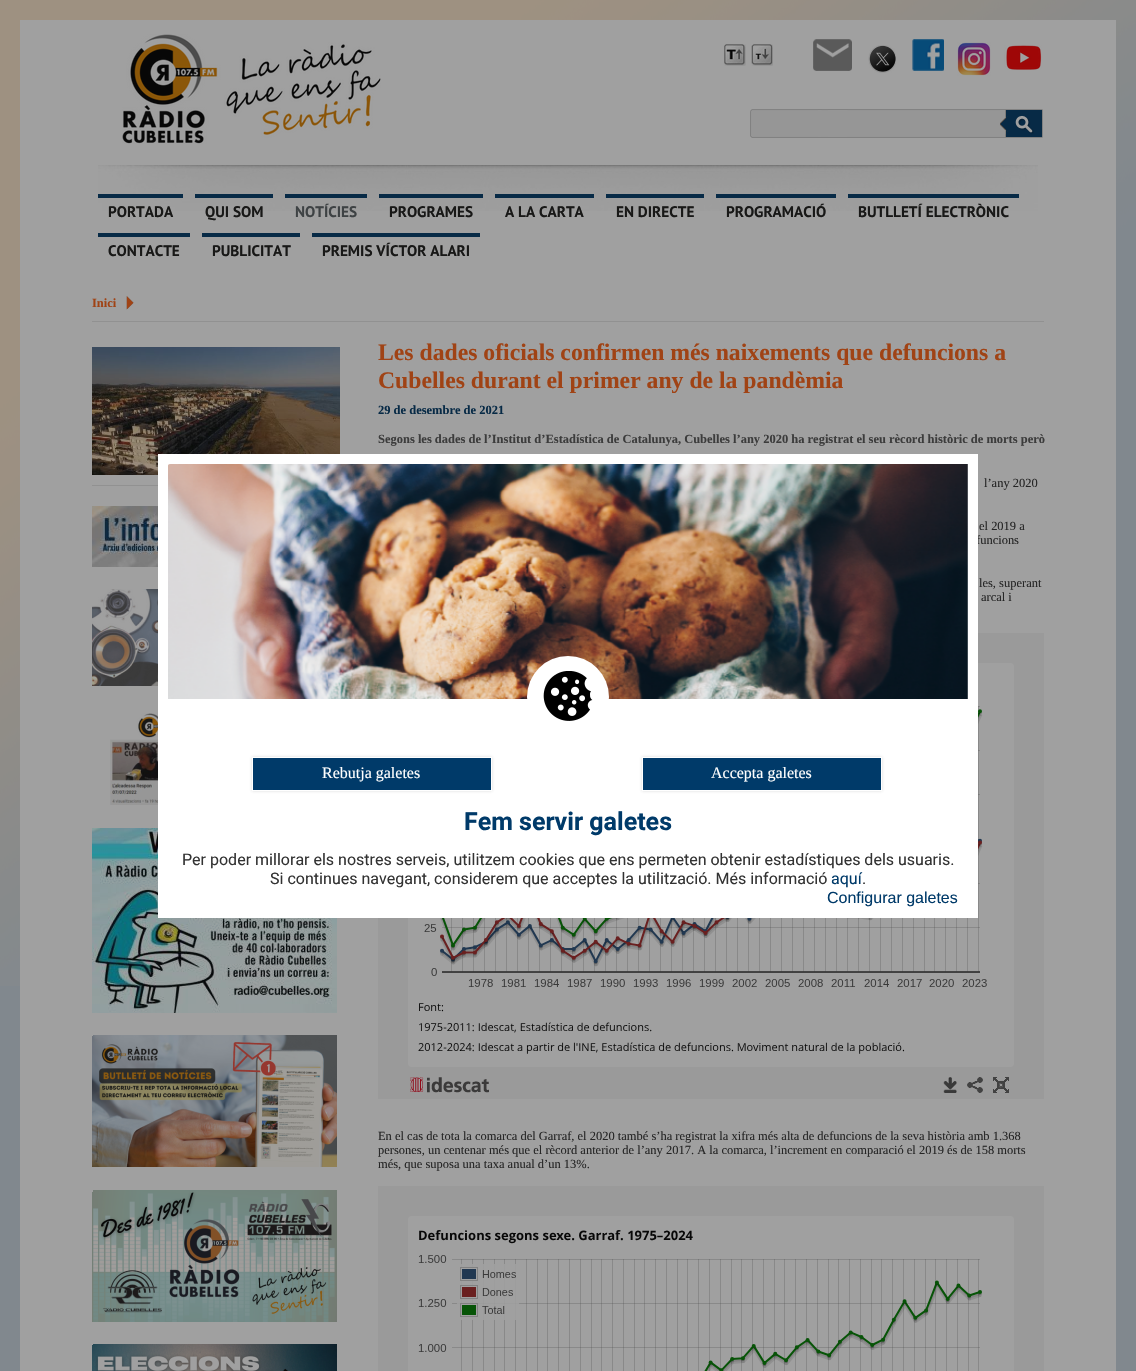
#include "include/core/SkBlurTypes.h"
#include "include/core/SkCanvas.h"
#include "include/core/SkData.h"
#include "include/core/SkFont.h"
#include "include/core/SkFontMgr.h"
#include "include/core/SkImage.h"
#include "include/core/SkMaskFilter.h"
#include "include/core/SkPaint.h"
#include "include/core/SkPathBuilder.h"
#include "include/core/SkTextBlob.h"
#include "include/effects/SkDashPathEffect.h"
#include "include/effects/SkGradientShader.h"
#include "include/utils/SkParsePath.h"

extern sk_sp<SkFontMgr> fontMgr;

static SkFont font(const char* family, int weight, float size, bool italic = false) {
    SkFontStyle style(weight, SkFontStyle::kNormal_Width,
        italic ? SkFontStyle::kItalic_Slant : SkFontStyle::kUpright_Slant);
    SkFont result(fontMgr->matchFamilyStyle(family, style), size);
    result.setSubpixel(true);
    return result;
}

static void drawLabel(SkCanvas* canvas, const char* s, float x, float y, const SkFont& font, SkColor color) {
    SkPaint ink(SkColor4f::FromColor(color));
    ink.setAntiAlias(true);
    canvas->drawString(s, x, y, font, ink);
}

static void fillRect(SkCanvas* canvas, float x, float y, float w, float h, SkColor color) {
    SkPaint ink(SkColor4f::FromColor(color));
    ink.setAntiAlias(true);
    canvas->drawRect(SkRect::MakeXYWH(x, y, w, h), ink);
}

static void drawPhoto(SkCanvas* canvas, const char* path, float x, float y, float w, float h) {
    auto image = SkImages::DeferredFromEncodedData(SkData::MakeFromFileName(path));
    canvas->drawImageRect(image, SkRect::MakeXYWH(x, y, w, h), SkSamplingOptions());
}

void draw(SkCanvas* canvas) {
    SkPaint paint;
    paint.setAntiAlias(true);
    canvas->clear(0xFF81888E);
    drawPhoto(canvas, "assets/img1.png", 0, 0, 1136, 986);
    fillRect(canvas, 20, 20, 1096, 1351, 0xFFA0A0A0);
    drawPhoto(canvas, "assets/img2.png", 122, 34, 259, 110);
    drawPhoto(canvas, "assets/img3.png", 724, 44, 22, 22);
    drawPhoto(canvas, "assets/img4.png", 751, 44, 22, 22);
    drawPhoto(canvas, "assets/img5.png", 813, 39, 39, 32);
    drawPhoto(canvas, "assets/img6.png", 868, 45, 28, 28);
    drawPhoto(canvas, "assets/img7.png", 912, 39, 32, 32);
    drawPhoto(canvas, "assets/img8.png", 957, 42, 34, 34);
    drawPhoto(canvas, "assets/img9.png", 1004, 45, 38, 25);
    drawPhoto(canvas, "assets/img10.png", 750, 109, 250, 29);
    drawPhoto(canvas, "assets/img11.png", 1000, 109, 43, 29);
    drawPhoto(canvas, "assets/img12.png", 98, 165, 940, 46);
    fillRect(canvas, 98, 194, 85, 4, 0xFF072A46);
    SkFont font1 = font("PT Sans", 700, 15.25f);
    drawLabel(canvas, "PORTADA", 108, 217, font1, 0xFF181817);
    fillRect(canvas, 195, 194, 78, 4, 0xFF072A46);
    drawLabel(canvas, "QUI SOM", 205, 217, font1, 0xFF181817);
    fillRect(canvas, 285, 194, 82, 4, 0xFF072A46);
    drawLabel(canvas, "NOTÍCIES", 295, 217, font1, 0xFF3E4244);
    fillRect(canvas, 379, 194, 104, 4, 0xFF072A46);
    drawLabel(canvas, "PROGRAMES", 389, 217, font1, 0xFF181817);
    fillRect(canvas, 495, 194, 99, 4, 0xFF072A46);
    drawLabel(canvas, "A LA CARTA", 505, 217, font1, 0xFF181817);
    fillRect(canvas, 606, 194, 98, 4, 0xFF072A46);
    drawLabel(canvas, "EN DIRECTE", 616, 217, font1, 0xFF181817);
    fillRect(canvas, 716, 194, 120, 4, 0xFF072A46);
    drawLabel(canvas, "PROGRAMACIÓ", 726, 217, font1, 0xFF181817);
    fillRect(canvas, 848, 194, 171, 4, 0xFF072A46);
    drawLabel(canvas, "BUTLLETÍ ELECTRÒNIC", 858, 217, font1, 0xFF181817);
    fillRect(canvas, 98, 233, 92, 4, 0xFF072A46);
    drawLabel(canvas, "CONTACTE", 108, 256, font1, 0xFF181817);
    fillRect(canvas, 202, 233, 98, 4, 0xFF072A46);
    drawLabel(canvas, "PUBLICITAT", 212, 256, font1, 0xFF181817);
    fillRect(canvas, 312, 233, 168, 4, 0xFF072A46);
    drawLabel(canvas, "PREMIS VÍCTOR ALARI", 322, 256, font1, 0xFF181817);
    fillRect(canvas, 92, 321, 952, 1, 0xFF919191);
    SkFont font2 = font("Liberation Serif", 700, 12.48f);
    drawLabel(canvas, "Inici", 92, 307, font2, 0xFFA04315);
    drawPhoto(canvas, "assets/img13.png", 126, 296, 8, 14);
    fillRect(canvas, 92, 485, 66, 1, 0xFF919191);
    drawPhoto(canvas, "assets/img14.png", 92, 347, 248, 128);
    drawPhoto(canvas, "assets/img15.png", 92, 506, 66, 61);
    drawPhoto(canvas, "assets/img16.png", 92, 589, 66, 97);
    drawPhoto(canvas, "assets/img17.png", 110, 713, 48, 92);
    drawPhoto(canvas, "assets/img18.png", 92, 828, 245, 185);
    drawPhoto(canvas, "assets/img19.png", 92, 1035, 245, 132);
    drawPhoto(canvas, "assets/img20.png", 92, 1190, 245, 132);
    drawPhoto(canvas, "assets/img21.png", 92, 1344, 245, 27);
    SkFont font3 = font("Liberation Serif", 700, 23.7f);
    drawLabel(canvas, "Les dades oficials confirmen més naixements que defuncions a", 378, 360, font3, 0xFFA04315);
    drawLabel(canvas, "Cubelles durant el primer any de la pandèmia", 378, 388, font3, 0xFFA04315);
    drawLabel(canvas, "29 de desembre de 2021", 378, 414, font2, 0xFF072A46);
    drawLabel(canvas, "Segons les dades de l’Institut d’Estadística de Catalunya, Cubelles l’any 2020 ha registrat el seu rècord històric de morts però", 378, 443, font2, 0xFF3C3C3C);
    SkFont font4 = font("Liberation Serif", 400, 12.48f);
    drawLabel(canvas, "l’any 2020", 984, 487, font4, 0xFF252525);
    drawLabel(canvas, "el 2019 a", 979, 530, font4, 0xFF252525);
    drawLabel(canvas, "funcions", 976, 544, font4, 0xFF252525);
    drawLabel(canvas, "les, superant", 979, 587, font4, 0xFF252525);
    drawLabel(canvas, "arcal i", 981, 601, font4, 0xFF252525);
    drawPhoto(canvas, "assets/img22.png", 378, 633, 666, 466);
    drawLabel(canvas, "En el cas de tota la comarca del Garraf, el 2020 també s’ha registrat la xifra més alta de defuncions de la seva història amb 1.368", 378, 1140, font4, 0xFF252525);
    drawLabel(canvas, "persones, un centenar més que el rècord anterior de l’any 2017. A la comarca, l’increment en comparació el 2019 és de 158 morts", 378, 1154, font4, 0xFF252525);
    drawLabel(canvas, "més, que suposa una taxa anual d’un 13%.", 378, 1168, font4, 0xFF252525);
    drawPhoto(canvas, "assets/img23.png", 378, 1186, 666, 185);
    fillRect(canvas, 158, 454, 820, 464, 0xFFFFFFFF);
    drawPhoto(canvas, "assets/img24.png", 168, 464, 800, 235);
    paint.setColor(0xFFFFFFFF);
    canvas->drawCircle(568, 697, 41, paint);
    drawPhoto(canvas, "assets/img25.png", 543, 671, 50, 50);
    paint.setColor(0x33444444);
    paint.setMaskFilter(SkMaskFilter::MakeBlur(kNormal_SkBlurStyle, 1.5f));
    canvas->drawRect(SkRect::MakeXYWH(252, 757, 240, 34), paint);
    paint.setMaskFilter(nullptr);
    paint.setColor(0xFF003A69);
    canvas->drawRect(SkRect::MakeXYWH(252.5f, 757.5f, 239, 33), paint);
    paint.setStroke(true);
    paint.setStrokeWidth(1);
    paint.setColor(0xFFFFFFFF);
    canvas->drawRect(SkRect::MakeXYWH(252.5f, 757.5f, 239, 33), paint);
    SkFont font5 = font("Liberation Serif", 400, 16);
    drawLabel(canvas, "Rebutja galetes", 322, 778, font5, 0xFFFFFFFF);
    paint.setStroke(false);
    paint.setColor(0x33444444);
    paint.setMaskFilter(SkMaskFilter::MakeBlur(kNormal_SkBlurStyle, 1.5f));
    canvas->drawRect(SkRect::MakeXYWH(642, 757, 240, 34), paint);
    paint.setMaskFilter(nullptr);
    paint.setColor(0xFF003A69);
    canvas->drawRect(SkRect::MakeXYWH(642.5f, 757.5f, 239, 33), paint);
    paint.setStroke(true);
    paint.setColor(0xFFFFFFFF);
    canvas->drawRect(SkRect::MakeXYWH(642.5f, 757.5f, 239, 33), paint);
    drawLabel(canvas, "Accepta galetes", 711, 778, font5, 0xFFFFFFFF);
    SkFont font6 = font("Heebo", 700, 25);
    drawLabel(canvas, "Fem servir galetes", 464, 830, font6, 0xFF003A69);
    SkFont font7 = font("Heebo", 400, 16);
    drawLabel(canvas, "Per poder millorar els nostres serveis, utilitzem cookies que ens permeten obtenir estadístiques dels usuaris.", 182, 865, font7, 0xFF333333);
    drawLabel(canvas, "Si continues navegant, considerem que acceptes la utilització. Més informació", 270, 884, font7, 0xFF333333);
    drawLabel(canvas, "aquí", 831, 884, font7, 0xFF003A69);
    drawLabel(canvas, ".", 862, 884, font7, 0xFF333333);
    SkFont font8 = font("Liberation Sans", 400, 16);
    drawLabel(canvas, "Configurar galetes", 827, 903, font8, 0xFF003A69);
}
